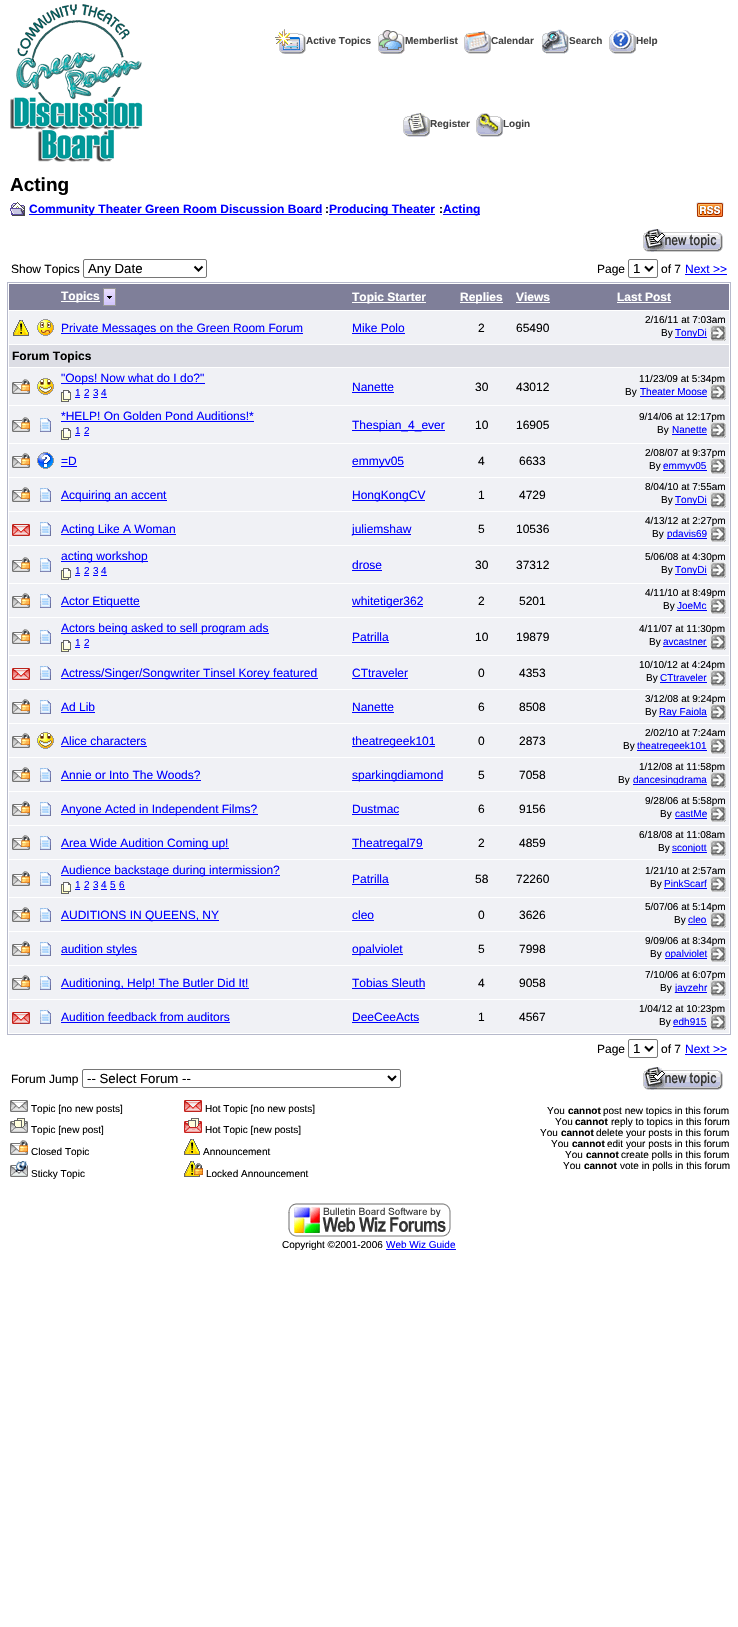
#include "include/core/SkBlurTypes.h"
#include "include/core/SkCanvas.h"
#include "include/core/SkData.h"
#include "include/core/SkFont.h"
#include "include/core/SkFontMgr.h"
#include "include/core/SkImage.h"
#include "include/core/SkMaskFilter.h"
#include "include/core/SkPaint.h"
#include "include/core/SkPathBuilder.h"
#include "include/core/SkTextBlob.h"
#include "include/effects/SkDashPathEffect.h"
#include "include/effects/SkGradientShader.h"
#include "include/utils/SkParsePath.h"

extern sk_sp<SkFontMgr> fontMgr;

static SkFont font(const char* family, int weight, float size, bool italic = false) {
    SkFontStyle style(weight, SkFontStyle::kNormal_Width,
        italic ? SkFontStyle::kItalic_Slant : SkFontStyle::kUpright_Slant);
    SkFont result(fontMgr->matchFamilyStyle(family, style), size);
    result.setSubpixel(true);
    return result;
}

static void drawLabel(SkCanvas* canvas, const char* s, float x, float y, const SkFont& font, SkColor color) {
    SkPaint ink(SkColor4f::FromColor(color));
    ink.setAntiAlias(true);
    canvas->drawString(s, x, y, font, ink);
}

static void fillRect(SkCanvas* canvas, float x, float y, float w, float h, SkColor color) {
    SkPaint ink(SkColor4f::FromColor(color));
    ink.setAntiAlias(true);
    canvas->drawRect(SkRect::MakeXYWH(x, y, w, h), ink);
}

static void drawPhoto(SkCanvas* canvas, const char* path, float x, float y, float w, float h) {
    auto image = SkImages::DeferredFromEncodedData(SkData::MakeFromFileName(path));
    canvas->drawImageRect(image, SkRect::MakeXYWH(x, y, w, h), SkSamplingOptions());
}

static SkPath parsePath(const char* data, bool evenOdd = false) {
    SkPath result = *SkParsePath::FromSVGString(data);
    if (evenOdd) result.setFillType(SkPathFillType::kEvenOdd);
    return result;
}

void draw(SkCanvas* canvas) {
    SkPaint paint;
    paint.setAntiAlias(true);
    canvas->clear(0xFFFFFFFF);
    drawPhoto(canvas, "assets/img1.png", 10, 4, 133, 158);
    drawPhoto(canvas, "assets/img2.png", 275, 29, 31, 25);
    SkFont font1 = font("Liberation Sans", 700, 10);
    drawLabel(canvas, "Active Topics", 306, 44, font1, 0xFF444444);
    drawPhoto(canvas, "assets/img3.png", 378, 30, 27, 24);
    drawLabel(canvas, "Memberlist", 405, 44, font1, 0xFF444444);
    drawPhoto(canvas, "assets/img4.png", 464, 31, 27, 23);
    drawLabel(canvas, "Calendar", 491, 44, font1, 0xFF444444);
    drawPhoto(canvas, "assets/img5.png", 542, 29, 27, 25);
    drawLabel(canvas, "Search", 569, 44, font1, 0xFF444444);
    drawPhoto(canvas, "assets/img6.png", 609, 30, 27, 24);
    drawLabel(canvas, "Help", 636, 44, font1, 0xFF444444);
    drawPhoto(canvas, "assets/img7.png", 403, 113, 27, 24);
    drawLabel(canvas, "Register", 430, 127, font1, 0xFF444444);
    drawPhoto(canvas, "assets/img8.png", 476, 113, 27, 24);
    drawLabel(canvas, "Login", 503, 127, font1, 0xFF444444);
    SkFont font2 = font("Liberation Sans", 700, 19);
    drawLabel(canvas, "Acting", 10, 191, font2, 0xFF000000);
    drawPhoto(canvas, "assets/img9.png", 10, 202, 15, 14);
    fillRect(canvas, 29, 214, 293, 1, 0xFF0000FF);
    SkFont font3 = font("Liberation Sans", 700, 12);
    drawLabel(canvas, "Community Theater Green Room Discussion Board", 29, 213, font3, 0xFF0000FF);
    drawLabel(canvas, ":", 325, 213, font3, 0xFF000000);
    fillRect(canvas, 329, 214, 106, 1, 0xFF0000FF);
    drawLabel(canvas, "Producing Theater", 329, 213, font3, 0xFF0000FF);
    drawLabel(canvas, ":", 439, 213, font3, 0xFF000000);
    fillRect(canvas, 443, 214, 37, 1, 0xFF0000FF);
    drawLabel(canvas, "Acting", 443, 213, font3, 0xFF0000FF);
    drawPhoto(canvas, "assets/img10.png", 696, 202, 28, 15);
    drawPhoto(canvas, "assets/img11.png", 643, 229, 80, 23);
    SkFont font4 = font("Liberation Sans", 400, 12);
    drawLabel(canvas, "Show Topics", 11, 273, font4, 0xFF000000);
    paint.setStroke(true);
    paint.setStrokeWidth(1);
    paint.setColor(0xFF767676);
    canvas->drawRoundRect(SkRect::MakeXYWH(83.5f, 259.5f, 123, 18), 1.5f, 1.5f, paint);
    paint.setStrokeWidth(2);
    paint.setColor(0xFF000000);
    canvas->drawPath(parsePath("M194.5 266.5L198.5 270.5L202.5 266.5"), paint);
    SkFont font5 = font("Liberation Sans", 400, 13.25f);
    drawLabel(canvas, "Any Date", 88, 273, font5, 0xFF000000);
    drawLabel(canvas, "Page", 597, 273, font4, 0xFF000000);
    paint.setStrokeWidth(1);
    paint.setColor(0xFF767676);
    canvas->drawRoundRect(SkRect::MakeXYWH(628.5f, 259.5f, 29, 18), 1.5f, 1.5f, paint);
    paint.setStrokeWidth(2);
    paint.setColor(0xFF000000);
    canvas->drawPath(parsePath("M645 266.5L649 270.5L653 266.5"), paint);
    drawLabel(canvas, "1", 633, 273, font5, 0xFF000000);
    drawLabel(canvas, "of 7", 661, 273, font4, 0xFF000000);
    drawLabel(canvas, "Next >>", 685, 273, font4, 0xFF0000FF);
    fillRect(canvas, 685, 274, 42, 1, 0xFF0000FF);
    paint.setStrokeWidth(1);
    paint.setColor(0xFFB6B9CB);
    canvas->drawRect(SkRect::MakeXYWH(7.5f, 282.5f, 723, 752), paint);
    fillRect(canvas, 9, 284, 720, 26, 0xFF7F7F99);
    fillRect(canvas, 61, 301, 39, 1, 0xFFFFFFFF);
    drawLabel(canvas, "Topics", 61, 300, font3, 0xFFFFFFFF);
    drawPhoto(canvas, "assets/img12.png", 103, 288, 13, 18);
    fillRect(canvas, 352, 302, 74, 1, 0xFFFFFFFF);
    drawLabel(canvas, "Topic Starter", 352, 301, font3, 0xFFFFFFFF);
    fillRect(canvas, 460, 302, 43, 1, 0xFFFFFFFF);
    drawLabel(canvas, "Replies", 460, 301, font3, 0xFFFFFFFF);
    drawLabel(canvas, "Views", 516, 301, font3, 0xFFFFFFFF);
    fillRect(canvas, 516, 302, 34, 1, 0xFFFFFFFF);
    drawLabel(canvas, "Last Post", 617, 301, font3, 0xFFFFFFFF);
    fillRect(canvas, 617, 302, 54, 1, 0xFFFFFFFF);
    fillRect(canvas, 9, 311, 720, 33, 0xFFF0F1F5);
    drawPhoto(canvas, "assets/img13.png", 13, 320, 16, 16);
    drawPhoto(canvas, "assets/img14.png", 37, 319, 17, 17);
    fillRect(canvas, 61, 333, 242, 1, 0xFF0000FF);
    drawLabel(canvas, "Private Messages on the Green Room Forum", 61, 332, font4, 0xFF0000FF);
    drawLabel(canvas, "Mike Polo", 352, 332, font4, 0xFF0000FF);
    fillRect(canvas, 352, 333, 53, 1, 0xFF0000FF);
    drawLabel(canvas, "2", 478, 332, font4, 0xFF000000);
    drawLabel(canvas, "65490", 516, 332, font4, 0xFF000000);
    SkFont font6 = font("Liberation Sans", 400, 10);
    drawLabel(canvas, "2/16/11 at 7:03am", 645, 323, font6, 0xFF000000);
    drawLabel(canvas, "By", 661, 336, font6, 0xFF000000);
    fillRect(canvas, 675, 337, 32, 1, 0xFF0000FF);
    drawLabel(canvas, "TonyDi", 675, 336, font6, 0xFF0000FF);
    drawPhoto(canvas, "assets/img15.png", 710, 325, 16, 16);
    fillRect(canvas, 9, 345, 720, 22, 0xFFDCDDE4);
    drawLabel(canvas, "Forum Topics", 12, 360, font3, 0xFF000000);
    fillRect(canvas, 9, 368, 720, 37, 0xFFF0F1F5);
    drawPhoto(canvas, "assets/img16.png", 12, 379, 18, 15);
    drawPhoto(canvas, "assets/img17.png", 37, 378, 17, 17);
    fillRect(canvas, 61, 383, 144, 1, 0xFF0000FF);
    drawLabel(canvas, "\"Oops! Now what do I do?\"", 61, 382, font4, 0xFF0000FF);
    drawPhoto(canvas, "assets/img18.png", 61, 390, 10, 12);
    drawLabel(canvas, "1", 75, 396, font6, 0xFF0000FF);
    fillRect(canvas, 75, 397, 5, 1, 0xFF0000FF);
    drawLabel(canvas, "2", 84, 396, font6, 0xFF0000FF);
    fillRect(canvas, 84, 397, 5, 1, 0xFF0000FF);
    drawLabel(canvas, "3", 93, 396, font6, 0xFF0000FF);
    fillRect(canvas, 93, 397, 5, 1, 0xFF0000FF);
    drawLabel(canvas, "4", 101, 396, font6, 0xFF0000FF);
    fillRect(canvas, 101, 397, 6, 1, 0xFF0000FF);
    drawLabel(canvas, "Nanette", 352, 391, font4, 0xFF0000FF);
    fillRect(canvas, 352, 392, 42, 1, 0xFF0000FF);
    drawLabel(canvas, "30", 475, 391, font4, 0xFF000000);
    drawLabel(canvas, "43012", 516, 391, font4, 0xFF000000);
    drawLabel(canvas, "11/23/09 at 5:34pm", 639, 382, font6, 0xFF000000);
    drawLabel(canvas, "By", 625, 395, font6, 0xFF000000);
    drawLabel(canvas, "Theater Moose", 640, 395, font6, 0xFF0000FF);
    fillRect(canvas, 640, 396, 67, 1, 0xFF0000FF);
    drawPhoto(canvas, "assets/img15.png", 710, 384, 16, 16);
    fillRect(canvas, 9, 406, 720, 37, 0xFFF0F1F5);
    drawPhoto(canvas, "assets/img16.png", 12, 417, 18, 15);
    drawPhoto(canvas, "assets/img19.png", 40, 417, 11, 15);
    drawLabel(canvas, "*HELP! On Golden Pond Auditions!*", 61, 420, font4, 0xFF0000FF);
    fillRect(canvas, 61, 421, 193, 1, 0xFF0000FF);
    drawPhoto(canvas, "assets/img18.png", 61, 428, 10, 12);
    drawLabel(canvas, "1", 75, 434, font6, 0xFF0000FF);
    fillRect(canvas, 75, 435, 5, 1, 0xFF0000FF);
    drawLabel(canvas, "2", 84, 434, font6, 0xFF0000FF);
    fillRect(canvas, 84, 435, 5, 1, 0xFF0000FF);
    fillRect(canvas, 352, 430, 93, 1, 0xFF0000FF);
    drawLabel(canvas, "Thespian_4_ever", 352, 429, font4, 0xFF0000FF);
    drawLabel(canvas, "10", 475, 429, font4, 0xFF000000);
    drawLabel(canvas, "16905", 516, 429, font4, 0xFF000000);
    drawLabel(canvas, "9/14/06 at 12:17pm", 639, 420, font6, 0xFF000000);
    drawLabel(canvas, "By", 657, 433, font6, 0xFF000000);
    drawLabel(canvas, "Nanette", 672, 433, font6, 0xFF0000FF);
    fillRect(canvas, 672, 434, 35, 1, 0xFF0000FF);
    drawPhoto(canvas, "assets/img15.png", 710, 422, 16, 16);
    fillRect(canvas, 9, 444, 720, 33, 0xFFF0F1F5);
    drawPhoto(canvas, "assets/img16.png", 12, 453, 18, 15);
    drawPhoto(canvas, "assets/img20.png", 37, 452, 17, 17);
    drawLabel(canvas, "=D", 61, 465, font4, 0xFF0000FF);
    fillRect(canvas, 61, 466, 16, 1, 0xFF0000FF);
    fillRect(canvas, 352, 466, 52, 1, 0xFF0000FF);
    drawLabel(canvas, "emmyv05", 352, 465, font4, 0xFF0000FF);
    drawLabel(canvas, "4", 478, 465, font4, 0xFF000000);
    drawLabel(canvas, "6633", 519, 465, font4, 0xFF000000);
    drawLabel(canvas, "2/08/07 at 9:37pm", 645, 456, font6, 0xFF000000);
    drawLabel(canvas, "By", 649, 469, font6, 0xFF000000);
    fillRect(canvas, 663, 470, 44, 1, 0xFF0000FF);
    drawLabel(canvas, "emmyv05", 663, 469, font6, 0xFF0000FF);
    drawPhoto(canvas, "assets/img15.png", 710, 458, 16, 16);
    fillRect(canvas, 9, 478, 720, 33, 0xFFF0F1F5);
    drawPhoto(canvas, "assets/img16.png", 12, 487, 18, 15);
    drawPhoto(canvas, "assets/img19.png", 40, 487, 11, 15);
    fillRect(canvas, 61, 500, 106, 1, 0xFF0000FF);
    drawLabel(canvas, "Acquiring an accent", 61, 499, font4, 0xFF0000FF);
    fillRect(canvas, 352, 500, 73, 1, 0xFF0000FF);
    drawLabel(canvas, "HongKongCV", 352, 499, font4, 0xFF0000FF);
    drawLabel(canvas, "1", 478, 499, font4, 0xFF000000);
    drawLabel(canvas, "4729", 519, 499, font4, 0xFF000000);
    drawLabel(canvas, "8/04/10 at 7:55am", 645, 490, font6, 0xFF000000);
    drawLabel(canvas, "By", 661, 503, font6, 0xFF000000);
    fillRect(canvas, 675, 504, 32, 1, 0xFF0000FF);
    drawLabel(canvas, "TonyDi", 675, 503, font6, 0xFF0000FF);
    drawPhoto(canvas, "assets/img15.png", 710, 492, 16, 16);
    fillRect(canvas, 9, 512, 720, 33, 0xFFF0F1F5);
    drawPhoto(canvas, "assets/img21.png", 12, 524, 18, 12);
    drawPhoto(canvas, "assets/img19.png", 40, 521, 11, 15);
    fillRect(canvas, 61, 534, 115, 1, 0xFF0000FF);
    drawLabel(canvas, "Acting Like A Woman", 61, 533, font4, 0xFF0000FF);
    fillRect(canvas, 352, 534, 59, 1, 0xFF0000FF);
    drawLabel(canvas, "juliemshaw", 352, 533, font4, 0xFF0000FF);
    drawLabel(canvas, "5", 478, 533, font4, 0xFF000000);
    drawLabel(canvas, "10536", 516, 533, font4, 0xFF000000);
    drawLabel(canvas, "4/13/12 at 2:27pm", 645, 524, font6, 0xFF000000);
    drawLabel(canvas, "By", 652, 537, font6, 0xFF000000);
    fillRect(canvas, 667, 538, 40, 1, 0xFF0000FF);
    drawLabel(canvas, "pdavis69", 667, 537, font6, 0xFF0000FF);
    drawPhoto(canvas, "assets/img15.png", 710, 526, 16, 16);
    fillRect(canvas, 9, 546, 720, 37, 0xFFF0F1F5);
    drawPhoto(canvas, "assets/img16.png", 12, 557, 18, 15);
    drawPhoto(canvas, "assets/img19.png", 40, 557, 11, 15);
    fillRect(canvas, 61, 561, 87, 1, 0xFF0000FF);
    drawLabel(canvas, "acting workshop", 61, 560, font4, 0xFF0000FF);
    drawPhoto(canvas, "assets/img18.png", 61, 568, 10, 12);
    drawLabel(canvas, "1", 75, 574, font6, 0xFF0000FF);
    fillRect(canvas, 75, 575, 5, 1, 0xFF0000FF);
    drawLabel(canvas, "2", 84, 574, font6, 0xFF0000FF);
    fillRect(canvas, 84, 575, 5, 1, 0xFF0000FF);
    drawLabel(canvas, "3", 93, 574, font6, 0xFF0000FF);
    fillRect(canvas, 93, 575, 5, 1, 0xFF0000FF);
    drawLabel(canvas, "4", 101, 574, font6, 0xFF0000FF);
    fillRect(canvas, 101, 575, 6, 1, 0xFF0000FF);
    drawLabel(canvas, "drose", 352, 569, font4, 0xFF0000FF);
    fillRect(canvas, 352, 570, 30, 1, 0xFF0000FF);
    drawLabel(canvas, "30", 475, 569, font4, 0xFF000000);
    drawLabel(canvas, "37312", 516, 569, font4, 0xFF000000);
    drawLabel(canvas, "5/06/08 at 4:30pm", 645, 560, font6, 0xFF000000);
    drawLabel(canvas, "By", 661, 573, font6, 0xFF000000);
    fillRect(canvas, 675, 574, 32, 1, 0xFF0000FF);
    drawLabel(canvas, "TonyDi", 675, 573, font6, 0xFF0000FF);
    drawPhoto(canvas, "assets/img15.png", 710, 562, 16, 16);
    fillRect(canvas, 9, 584, 720, 33, 0xFFF0F1F5);
    drawPhoto(canvas, "assets/img16.png", 12, 593, 18, 15);
    drawPhoto(canvas, "assets/img19.png", 40, 593, 11, 15);
    fillRect(canvas, 61, 606, 79, 1, 0xFF0000FF);
    drawLabel(canvas, "Actor Etiquette", 61, 605, font4, 0xFF0000FF);
    fillRect(canvas, 352, 606, 71, 1, 0xFF0000FF);
    drawLabel(canvas, "whitetiger362", 352, 605, font4, 0xFF0000FF);
    drawLabel(canvas, "2", 478, 605, font4, 0xFF000000);
    drawLabel(canvas, "5201", 519, 605, font4, 0xFF000000);
    drawLabel(canvas, "4/11/10 at 8:49pm", 645, 596, font6, 0xFF000000);
    drawLabel(canvas, "By", 663, 609, font6, 0xFF000000);
    drawLabel(canvas, "JoeMc", 677, 609, font6, 0xFF0000FF);
    fillRect(canvas, 677, 610, 30, 1, 0xFF0000FF);
    drawPhoto(canvas, "assets/img15.png", 710, 598, 16, 16);
    fillRect(canvas, 9, 618, 720, 37, 0xFFF0F1F5);
    drawPhoto(canvas, "assets/img16.png", 12, 629, 18, 15);
    drawPhoto(canvas, "assets/img19.png", 40, 629, 11, 15);
    fillRect(canvas, 61, 633, 208, 1, 0xFF0000FF);
    drawLabel(canvas, "Actors being asked to sell program ads", 61, 632, font4, 0xFF0000FF);
    drawPhoto(canvas, "assets/img18.png", 61, 640, 10, 12);
    drawLabel(canvas, "1", 75, 646, font6, 0xFF0000FF);
    fillRect(canvas, 75, 647, 5, 1, 0xFF0000FF);
    drawLabel(canvas, "2", 84, 646, font6, 0xFF0000FF);
    fillRect(canvas, 84, 647, 5, 1, 0xFF0000FF);
    drawLabel(canvas, "Patrilla", 352, 641, font4, 0xFF0000FF);
    fillRect(canvas, 352, 642, 37, 1, 0xFF0000FF);
    drawLabel(canvas, "10", 475, 641, font4, 0xFF000000);
    drawLabel(canvas, "19879", 516, 641, font4, 0xFF000000);
    drawLabel(canvas, "4/11/07 at 11:30pm", 639, 632, font6, 0xFF000000);
    drawLabel(canvas, "By", 649, 645, font6, 0xFF000000);
    drawLabel(canvas, "avcastner", 663, 645, font6, 0xFF0000FF);
    fillRect(canvas, 663, 646, 44, 1, 0xFF0000FF);
    drawPhoto(canvas, "assets/img15.png", 710, 634, 16, 16);
    fillRect(canvas, 9, 656, 720, 33, 0xFFF0F1F5);
    drawPhoto(canvas, "assets/img21.png", 12, 668, 18, 12);
    drawPhoto(canvas, "assets/img19.png", 40, 665, 11, 15);
    fillRect(canvas, 61, 678, 257, 1, 0xFF0000FF);
    drawLabel(canvas, "Actress/Singer/Songwriter Tinsel Korey featured", 61, 677, font4, 0xFF0000FF);
    drawLabel(canvas, "CTtraveler", 352, 677, font4, 0xFF0000FF);
    fillRect(canvas, 352, 678, 56, 1, 0xFF0000FF);
    drawLabel(canvas, "0", 478, 677, font4, 0xFF000000);
    drawLabel(canvas, "4353", 519, 677, font4, 0xFF000000);
    drawLabel(canvas, "10/10/12 at 4:24pm", 639, 668, font6, 0xFF000000);
    drawLabel(canvas, "By", 646, 681, font6, 0xFF000000);
    drawLabel(canvas, "CTtraveler", 660, 681, font6, 0xFF0000FF);
    fillRect(canvas, 660, 682, 47, 1, 0xFF0000FF);
    drawPhoto(canvas, "assets/img15.png", 710, 670, 16, 16);
    fillRect(canvas, 9, 690, 720, 33, 0xFFF0F1F5);
    drawPhoto(canvas, "assets/img16.png", 12, 699, 18, 15);
    drawPhoto(canvas, "assets/img19.png", 40, 699, 11, 15);
    drawLabel(canvas, "Ad Lib", 61, 711, font4, 0xFF0000FF);
    fillRect(canvas, 61, 712, 34, 1, 0xFF0000FF);
    drawLabel(canvas, "Nanette", 352, 711, font4, 0xFF0000FF);
    fillRect(canvas, 352, 712, 42, 1, 0xFF0000FF);
    drawLabel(canvas, "6", 478, 711, font4, 0xFF000000);
    drawLabel(canvas, "8508", 519, 711, font4, 0xFF000000);
    drawLabel(canvas, "3/12/08 at 9:24pm", 645, 702, font6, 0xFF000000);
    drawLabel(canvas, "By", 645, 715, font6, 0xFF000000);
    fillRect(canvas, 659, 716, 48, 1, 0xFF0000FF);
    drawLabel(canvas, "Ray Faiola", 659, 715, font6, 0xFF0000FF);
    drawPhoto(canvas, "assets/img15.png", 710, 704, 16, 16);
    fillRect(canvas, 9, 724, 720, 33, 0xFFF0F1F5);
    drawPhoto(canvas, "assets/img16.png", 12, 733, 18, 15);
    drawPhoto(canvas, "assets/img17.png", 37, 732, 17, 17);
    drawLabel(canvas, "Alice characters", 61, 745, font4, 0xFF0000FF);
    fillRect(canvas, 61, 746, 86, 1, 0xFF0000FF);
    fillRect(canvas, 352, 746, 83, 1, 0xFF0000FF);
    drawLabel(canvas, "theatregeek101", 352, 745, font4, 0xFF0000FF);
    drawLabel(canvas, "0", 478, 745, font4, 0xFF000000);
    drawLabel(canvas, "2873", 519, 745, font4, 0xFF000000);
    drawLabel(canvas, "2/02/10 at 7:24am", 645, 736, font6, 0xFF000000);
    drawLabel(canvas, "By", 623, 749, font6, 0xFF000000);
    fillRect(canvas, 637, 750, 70, 1, 0xFF0000FF);
    drawLabel(canvas, "theatregeek101", 637, 749, font6, 0xFF0000FF);
    drawPhoto(canvas, "assets/img15.png", 710, 738, 16, 16);
    fillRect(canvas, 9, 758, 720, 33, 0xFFF0F1F5);
    drawPhoto(canvas, "assets/img16.png", 12, 767, 18, 15);
    drawPhoto(canvas, "assets/img19.png", 40, 767, 11, 15);
    drawLabel(canvas, "Annie or Into The Woods?", 61, 779, font4, 0xFF0000FF);
    fillRect(canvas, 61, 780, 140, 1, 0xFF0000FF);
    fillRect(canvas, 352, 780, 91, 1, 0xFF0000FF);
    drawLabel(canvas, "sparkingdiamond", 352, 779, font4, 0xFF0000FF);
    drawLabel(canvas, "5", 478, 779, font4, 0xFF000000);
    drawLabel(canvas, "7058", 519, 779, font4, 0xFF000000);
    drawLabel(canvas, "1/12/08 at 11:58pm", 639, 770, font6, 0xFF000000);
    drawLabel(canvas, "By", 618, 783, font6, 0xFF000000);
    fillRect(canvas, 633, 784, 74, 1, 0xFF0000FF);
    drawLabel(canvas, "dancesingdrama", 633, 783, font6, 0xFF0000FF);
    drawPhoto(canvas, "assets/img15.png", 710, 772, 16, 16);
    fillRect(canvas, 9, 792, 720, 33, 0xFFF0F1F5);
    drawPhoto(canvas, "assets/img16.png", 12, 801, 18, 15);
    drawPhoto(canvas, "assets/img19.png", 40, 801, 11, 15);
    fillRect(canvas, 61, 814, 197, 1, 0xFF0000FF);
    drawLabel(canvas, "Anyone Acted in Independent Films?", 61, 813, font4, 0xFF0000FF);
    drawLabel(canvas, "Dustmac", 352, 813, font4, 0xFF0000FF);
    fillRect(canvas, 352, 814, 47, 1, 0xFF0000FF);
    drawLabel(canvas, "6", 478, 813, font4, 0xFF000000);
    drawLabel(canvas, "9156", 519, 813, font4, 0xFF000000);
    drawLabel(canvas, "9/28/06 at 5:58pm", 645, 804, font6, 0xFF000000);
    drawLabel(canvas, "By", 660, 817, font6, 0xFF000000);
    drawLabel(canvas, "castMe", 675, 817, font6, 0xFF0000FF);
    fillRect(canvas, 675, 818, 32, 1, 0xFF0000FF);
    drawPhoto(canvas, "assets/img15.png", 710, 806, 16, 16);
    fillRect(canvas, 9, 826, 720, 33, 0xFFF0F1F5);
    drawPhoto(canvas, "assets/img16.png", 12, 835, 18, 15);
    drawPhoto(canvas, "assets/img19.png", 40, 835, 11, 15);
    fillRect(canvas, 61, 848, 168, 1, 0xFF0000FF);
    drawLabel(canvas, "Area Wide Audition Coming up!", 61, 847, font4, 0xFF0000FF);
    fillRect(canvas, 352, 848, 71, 1, 0xFF0000FF);
    drawLabel(canvas, "Theatregal79", 352, 847, font4, 0xFF0000FF);
    drawLabel(canvas, "2", 478, 847, font4, 0xFF000000);
    drawLabel(canvas, "4859", 519, 847, font4, 0xFF000000);
    drawLabel(canvas, "6/18/08 at 11:08am", 639, 838, font6, 0xFF000000);
    drawLabel(canvas, "By", 658, 851, font6, 0xFF000000);
    fillRect(canvas, 672, 852, 35, 1, 0xFF0000FF);
    drawLabel(canvas, "sconjott", 672, 851, font6, 0xFF0000FF);
    drawPhoto(canvas, "assets/img15.png", 710, 840, 16, 16);
    fillRect(canvas, 9, 860, 720, 37, 0xFFF0F1F5);
    drawPhoto(canvas, "assets/img16.png", 12, 871, 18, 15);
    drawPhoto(canvas, "assets/img19.png", 40, 871, 11, 15);
    fillRect(canvas, 61, 875, 219, 1, 0xFF0000FF);
    drawLabel(canvas, "Audience backstage during intermission?", 61, 874, font4, 0xFF0000FF);
    drawPhoto(canvas, "assets/img18.png", 61, 882, 10, 12);
    drawLabel(canvas, "1", 75, 888, font6, 0xFF0000FF);
    fillRect(canvas, 75, 889, 5, 1, 0xFF0000FF);
    drawLabel(canvas, "2", 84, 888, font6, 0xFF0000FF);
    fillRect(canvas, 84, 889, 5, 1, 0xFF0000FF);
    drawLabel(canvas, "3", 93, 888, font6, 0xFF0000FF);
    fillRect(canvas, 93, 889, 5, 1, 0xFF0000FF);
    drawLabel(canvas, "4", 101, 888, font6, 0xFF0000FF);
    fillRect(canvas, 101, 889, 6, 1, 0xFF0000FF);
    drawLabel(canvas, "5", 110, 888, font6, 0xFF0000FF);
    fillRect(canvas, 110, 889, 6, 1, 0xFF0000FF);
    drawLabel(canvas, "6", 119, 888, font6, 0xFF0000FF);
    fillRect(canvas, 119, 889, 6, 1, 0xFF0000FF);
    drawLabel(canvas, "Patrilla", 352, 883, font4, 0xFF0000FF);
    fillRect(canvas, 352, 884, 37, 1, 0xFF0000FF);
    drawLabel(canvas, "58", 475, 883, font4, 0xFF000000);
    drawLabel(canvas, "72260", 516, 883, font4, 0xFF000000);
    drawLabel(canvas, "1/21/10 at 2:57am", 645, 874, font6, 0xFF000000);
    drawLabel(canvas, "By", 650, 887, font6, 0xFF000000);
    drawLabel(canvas, "PinkScarf", 664, 887, font6, 0xFF0000FF);
    fillRect(canvas, 664, 888, 43, 1, 0xFF0000FF);
    drawPhoto(canvas, "assets/img15.png", 710, 876, 16, 16);
    fillRect(canvas, 9, 898, 720, 33, 0xFFF0F1F5);
    drawPhoto(canvas, "assets/img16.png", 12, 907, 18, 15);
    drawPhoto(canvas, "assets/img19.png", 40, 907, 11, 15);
    fillRect(canvas, 61, 920, 158, 1, 0xFF0000FF);
    drawLabel(canvas, "AUDITIONS IN QUEENS, NY", 61, 919, font4, 0xFF0000FF);
    drawLabel(canvas, "cleo", 352, 919, font4, 0xFF0000FF);
    fillRect(canvas, 352, 920, 22, 1, 0xFF0000FF);
    drawLabel(canvas, "0", 478, 919, font4, 0xFF000000);
    drawLabel(canvas, "3626", 519, 919, font4, 0xFF000000);
    drawLabel(canvas, "5/07/06 at 5:14pm", 645, 910, font6, 0xFF000000);
    drawLabel(canvas, "By", 674, 923, font6, 0xFF000000);
    drawLabel(canvas, "cleo", 688, 923, font6, 0xFF0000FF);
    fillRect(canvas, 688, 924, 19, 1, 0xFF0000FF);
    drawPhoto(canvas, "assets/img15.png", 710, 912, 16, 16);
    fillRect(canvas, 9, 932, 720, 33, 0xFFF0F1F5);
    drawPhoto(canvas, "assets/img16.png", 12, 941, 18, 15);
    drawPhoto(canvas, "assets/img19.png", 40, 941, 11, 15);
    fillRect(canvas, 61, 954, 76, 1, 0xFF0000FF);
    drawLabel(canvas, "audition styles", 61, 953, font4, 0xFF0000FF);
    fillRect(canvas, 352, 954, 51, 1, 0xFF0000FF);
    drawLabel(canvas, "opalviolet", 352, 953, font4, 0xFF0000FF);
    drawLabel(canvas, "5", 478, 953, font4, 0xFF000000);
    drawLabel(canvas, "7998", 519, 953, font4, 0xFF000000);
    drawLabel(canvas, "9/09/06 at 8:34pm", 645, 944, font6, 0xFF000000);
    drawLabel(canvas, "By", 650, 957, font6, 0xFF000000);
    fillRect(canvas, 665, 958, 42, 1, 0xFF0000FF);
    drawLabel(canvas, "opalviolet", 665, 957, font6, 0xFF0000FF);
    drawPhoto(canvas, "assets/img15.png", 710, 946, 16, 16);
    fillRect(canvas, 9, 966, 720, 33, 0xFFF0F1F5);
    drawPhoto(canvas, "assets/img16.png", 12, 975, 18, 15);
    drawPhoto(canvas, "assets/img19.png", 40, 975, 11, 15);
    fillRect(canvas, 61, 988, 188, 1, 0xFF0000FF);
    drawLabel(canvas, "Auditioning, Help! The Butler Did It!", 61, 987, font4, 0xFF0000FF);
    drawLabel(canvas, "Tobias Sleuth", 352, 987, font4, 0xFF0000FF);
    fillRect(canvas, 352, 988, 73, 1, 0xFF0000FF);
    drawLabel(canvas, "4", 478, 987, font4, 0xFF000000);
    drawLabel(canvas, "9058", 519, 987, font4, 0xFF000000);
    drawLabel(canvas, "7/10/06 at 6:07pm", 645, 978, font6, 0xFF000000);
    drawLabel(canvas, "By", 660, 991, font6, 0xFF000000);
    fillRect(canvas, 675, 992, 32, 1, 0xFF0000FF);
    drawLabel(canvas, "jayzehr", 675, 991, font6, 0xFF0000FF);
    drawPhoto(canvas, "assets/img15.png", 710, 980, 16, 16);
    fillRect(canvas, 9, 1000, 720, 33, 0xFFF0F1F5);
    drawPhoto(canvas, "assets/img21.png", 12, 1012, 18, 12);
    drawPhoto(canvas, "assets/img19.png", 40, 1009, 11, 15);
    drawLabel(canvas, "Audition feedback from auditors", 61, 1021, font4, 0xFF0000FF);
    fillRect(canvas, 61, 1022, 169, 1, 0xFF0000FF);
    drawLabel(canvas, "DeeCeeActs", 352, 1021, font4, 0xFF0000FF);
    fillRect(canvas, 352, 1022, 67, 1, 0xFF0000FF);
    drawLabel(canvas, "1", 478, 1021, font4, 0xFF000000);
    drawLabel(canvas, "4567", 519, 1021, font4, 0xFF000000);
    drawLabel(canvas, "1/04/12 at 10:23pm", 639, 1012, font6, 0xFF000000);
    drawLabel(canvas, "By", 659, 1025, font6, 0xFF000000);
    drawLabel(canvas, "edh915", 673, 1025, font6, 0xFF0000FF);
    fillRect(canvas, 673, 1026, 34, 1, 0xFF0000FF);
    drawPhoto(canvas, "assets/img15.png", 710, 1014, 16, 16);
    drawLabel(canvas, "Page", 597, 1053, font4, 0xFF000000);
    paint.setColor(0xFF767676);
    canvas->drawRoundRect(SkRect::MakeXYWH(628.5f, 1039.5f, 29, 18), 1.5f, 1.5f, paint);
    paint.setStrokeWidth(2);
    paint.setColor(0xFF000000);
    canvas->drawPath(parsePath("M645 1046.5L649 1050.5L653 1046.5"), paint);
    drawLabel(canvas, "1", 633, 1053, font5, 0xFF000000);
    drawLabel(canvas, "of 7", 661, 1053, font4, 0xFF000000);
    drawLabel(canvas, "Next >>", 685, 1053, font4, 0xFF0000FF);
    fillRect(canvas, 685, 1054, 42, 1, 0xFF0000FF);
    drawLabel(canvas, "Forum Jump", 11, 1083, font4, 0xFF000000);
    paint.setStrokeWidth(1);
    paint.setColor(0xFF767676);
    canvas->drawRoundRect(SkRect::MakeXYWH(82.5f, 1069.5f, 318, 18), 1.5f, 1.5f, paint);
    paint.setStrokeWidth(2);
    paint.setColor(0xFF000000);
    canvas->drawPath(parsePath("M388 1076L392 1080L396 1076"), paint);
    drawLabel(canvas, "-- Select Forum --", 87, 1083, font5, 0xFF000000);
    drawPhoto(canvas, "assets/img11.png", 643, 1067, 80, 23);
    drawPhoto(canvas, "assets/img22.png", 10, 1100, 18, 12);
    drawLabel(canvas, "Topic [no new posts]", 31, 1112, font6, 0xFF000000);
    drawPhoto(canvas, "assets/img21.png", 184, 1100, 18, 12);
    drawLabel(canvas, "Hot Topic [no new posts]", 205, 1112, font6, 0xFF000000);
    drawPhoto(canvas, "assets/img23.png", 10, 1118, 18, 15);
    drawLabel(canvas, "Topic [new post]", 31, 1133, font6, 0xFF000000);
    drawPhoto(canvas, "assets/img24.png", 184, 1118, 18, 15);
    drawLabel(canvas, "Hot Topic [new posts]", 205, 1133, font6, 0xFF000000);
    drawPhoto(canvas, "assets/img25.png", 10, 1140, 18, 15);
    drawLabel(canvas, "Closed Topic", 31, 1155, font6, 0xFF000000);
    drawPhoto(canvas, "assets/img26.png", 184, 1139, 16, 16);
    drawLabel(canvas, "Announcement", 203, 1155, font6, 0xFF000000);
    drawPhoto(canvas, "assets/img27.png", 10, 1161, 18, 16);
    drawLabel(canvas, "Sticky Topic", 31, 1177, font6, 0xFF000000);
    drawPhoto(canvas, "assets/img28.png", 184, 1161, 19, 16);
    drawLabel(canvas, "Locked Announcement", 206, 1177, font6, 0xFF000000);
    drawLabel(canvas, "You", 547, 1114, font6, 0xFF000000);
    drawLabel(canvas, "cannot", 568, 1114, font1, 0xFF000000);
    drawLabel(canvas, "post new topics in this forum", 603, 1114, font6, 0xFF000000);
    drawLabel(canvas, "You", 555, 1125, font6, 0xFF000000);
    drawLabel(canvas, "cannot", 575, 1125, font1, 0xFF000000);
    drawLabel(canvas, "reply to topics in this forum", 611, 1125, font6, 0xFF000000);
    drawLabel(canvas, "You", 540, 1136, font6, 0xFF000000);
    drawLabel(canvas, "cannot", 561, 1136, font1, 0xFF000000);
    drawLabel(canvas, "delete your posts in this forum", 596, 1136, font6, 0xFF000000);
    drawLabel(canvas, "You", 551, 1147, font6, 0xFF000000);
    drawLabel(canvas, "cannot", 572, 1147, font1, 0xFF000000);
    drawLabel(canvas, "edit your posts in this forum", 607, 1147, font6, 0xFF000000);
    drawLabel(canvas, "You", 565, 1158, font6, 0xFF000000);
    drawLabel(canvas, "cannot", 586, 1158, font1, 0xFF000000);
    drawLabel(canvas, "create polls in this forum", 621, 1158, font6, 0xFF000000);
    drawLabel(canvas, "You", 563, 1169, font6, 0xFF000000);
    drawLabel(canvas, "cannot", 584, 1169, font1, 0xFF000000);
    drawLabel(canvas, "vote in polls in this forum", 620, 1169, font6, 0xFF000000);
    drawPhoto(canvas, "assets/img29.png", 288, 1203, 163, 34);
    drawLabel(canvas, "Copyright ©2001-2006", 282, 1248, font6, 0xFF000000);
    drawLabel(canvas, "Web Wiz Guide", 386, 1248, font6, 0xFF0000FF);
    fillRect(canvas, 386, 1249, 70, 1, 0xFF0000FF);
}
